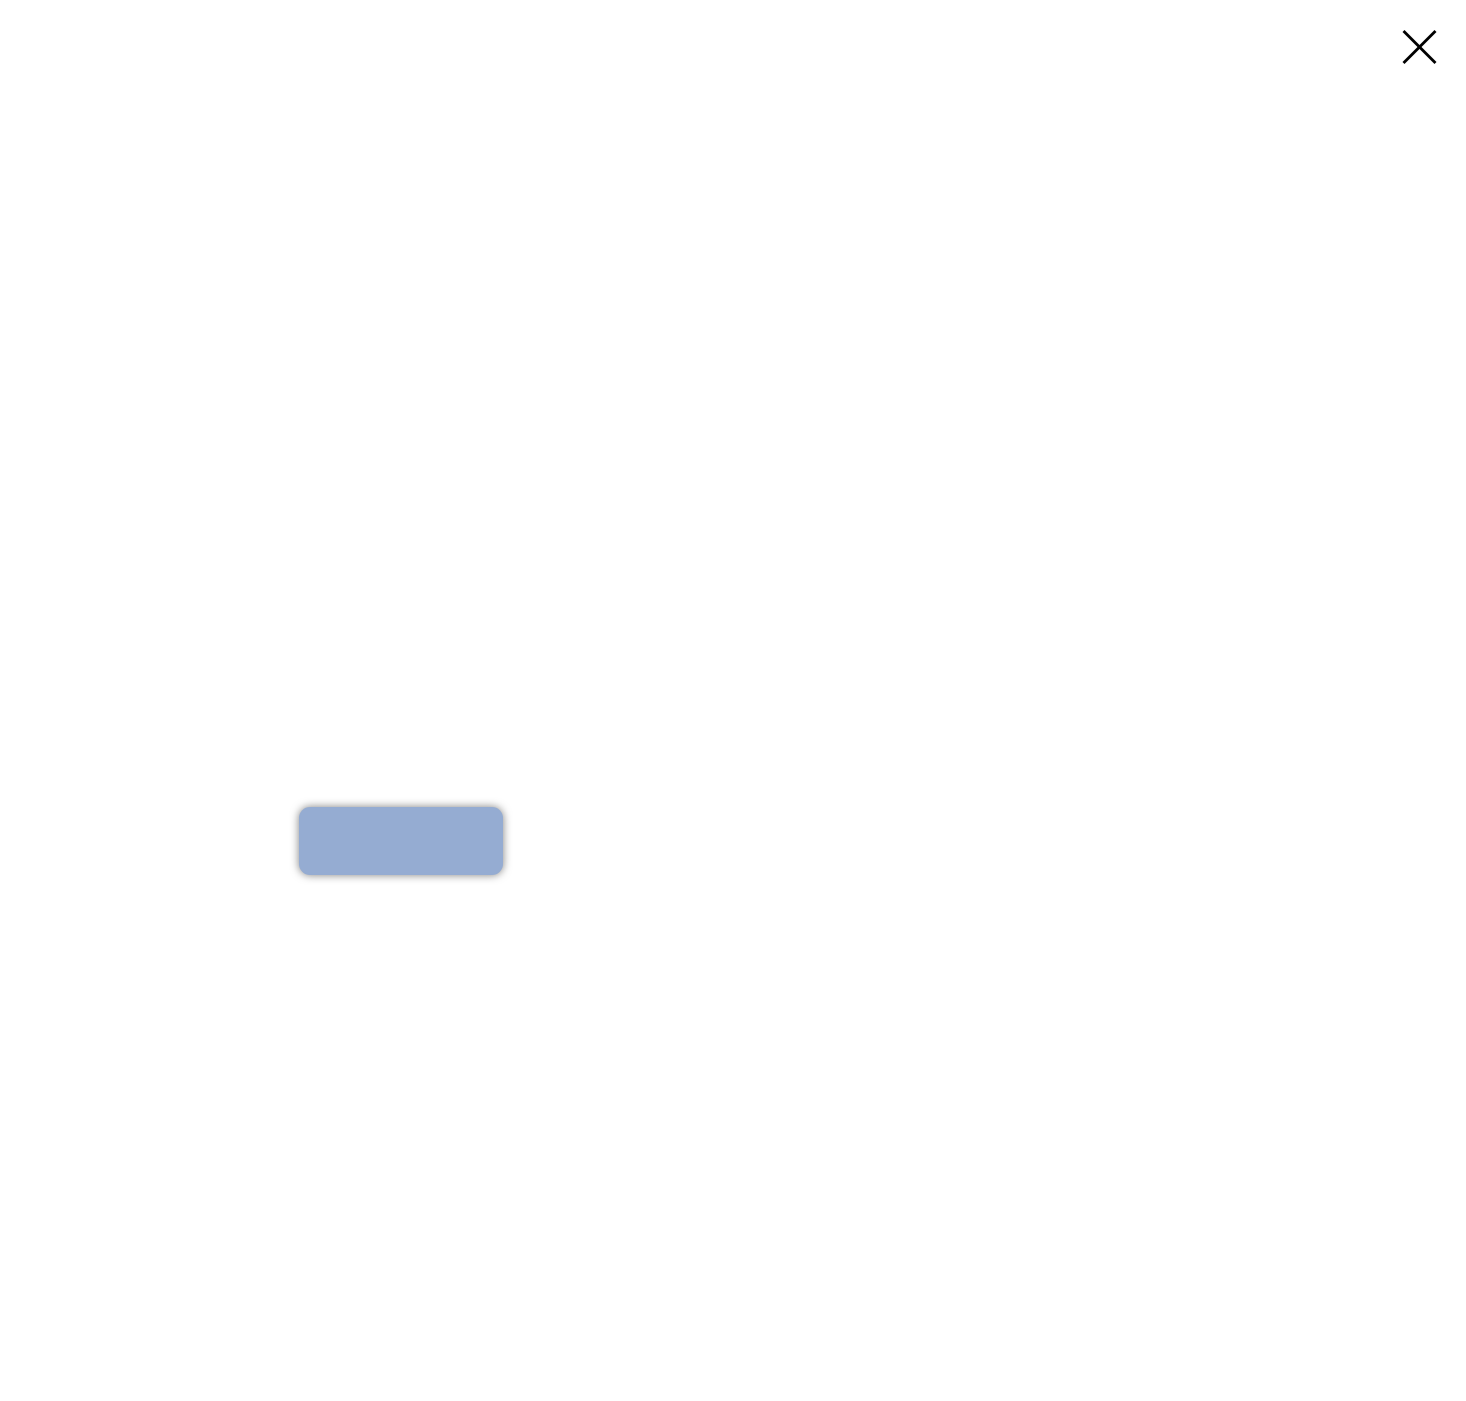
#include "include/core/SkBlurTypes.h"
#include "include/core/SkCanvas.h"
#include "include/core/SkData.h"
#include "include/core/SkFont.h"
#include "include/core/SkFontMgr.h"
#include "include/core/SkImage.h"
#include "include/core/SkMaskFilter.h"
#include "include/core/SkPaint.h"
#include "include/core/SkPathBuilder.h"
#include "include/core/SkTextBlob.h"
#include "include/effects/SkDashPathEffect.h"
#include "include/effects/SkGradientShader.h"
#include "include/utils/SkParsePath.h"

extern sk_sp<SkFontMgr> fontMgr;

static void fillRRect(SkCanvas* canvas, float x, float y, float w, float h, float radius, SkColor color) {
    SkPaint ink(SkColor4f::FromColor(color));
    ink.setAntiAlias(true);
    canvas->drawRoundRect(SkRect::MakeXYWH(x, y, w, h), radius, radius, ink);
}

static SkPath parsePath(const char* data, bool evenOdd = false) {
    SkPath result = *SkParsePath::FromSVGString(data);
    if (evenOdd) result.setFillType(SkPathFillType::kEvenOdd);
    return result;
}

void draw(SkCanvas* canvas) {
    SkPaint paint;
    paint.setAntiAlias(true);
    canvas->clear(0xFFFFFFFF);
    paint.setColor(0xFF000000);
    canvas->drawPath(parsePath("M1402.5 32L1404.5 30L1436.5 62L1434.5 64Z", true), paint);
    canvas->drawPath(parsePath("M1434.5 30L1436.5 32L1404.5 64L1402.5 62Z", true), paint);
    paint.setColor(0xFF808080);
    paint.setMaskFilter(SkMaskFilter::MakeBlur(kNormal_SkBlurStyle, 4));
    canvas->drawRoundRect(SkRect::MakeXYWH(299, 807, 204, 68), 11, 11, paint);
    paint.setMaskFilter(nullptr);
    fillRRect(canvas, 299, 807, 204, 68, 11, 0xFF95ACD2);
}
